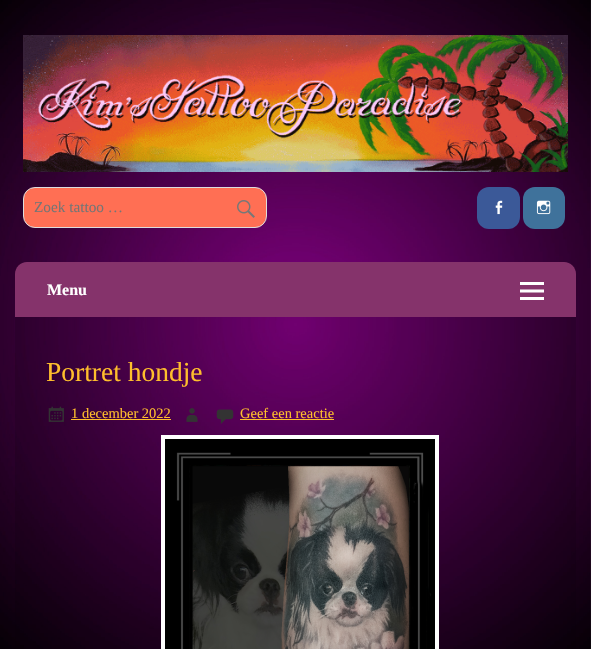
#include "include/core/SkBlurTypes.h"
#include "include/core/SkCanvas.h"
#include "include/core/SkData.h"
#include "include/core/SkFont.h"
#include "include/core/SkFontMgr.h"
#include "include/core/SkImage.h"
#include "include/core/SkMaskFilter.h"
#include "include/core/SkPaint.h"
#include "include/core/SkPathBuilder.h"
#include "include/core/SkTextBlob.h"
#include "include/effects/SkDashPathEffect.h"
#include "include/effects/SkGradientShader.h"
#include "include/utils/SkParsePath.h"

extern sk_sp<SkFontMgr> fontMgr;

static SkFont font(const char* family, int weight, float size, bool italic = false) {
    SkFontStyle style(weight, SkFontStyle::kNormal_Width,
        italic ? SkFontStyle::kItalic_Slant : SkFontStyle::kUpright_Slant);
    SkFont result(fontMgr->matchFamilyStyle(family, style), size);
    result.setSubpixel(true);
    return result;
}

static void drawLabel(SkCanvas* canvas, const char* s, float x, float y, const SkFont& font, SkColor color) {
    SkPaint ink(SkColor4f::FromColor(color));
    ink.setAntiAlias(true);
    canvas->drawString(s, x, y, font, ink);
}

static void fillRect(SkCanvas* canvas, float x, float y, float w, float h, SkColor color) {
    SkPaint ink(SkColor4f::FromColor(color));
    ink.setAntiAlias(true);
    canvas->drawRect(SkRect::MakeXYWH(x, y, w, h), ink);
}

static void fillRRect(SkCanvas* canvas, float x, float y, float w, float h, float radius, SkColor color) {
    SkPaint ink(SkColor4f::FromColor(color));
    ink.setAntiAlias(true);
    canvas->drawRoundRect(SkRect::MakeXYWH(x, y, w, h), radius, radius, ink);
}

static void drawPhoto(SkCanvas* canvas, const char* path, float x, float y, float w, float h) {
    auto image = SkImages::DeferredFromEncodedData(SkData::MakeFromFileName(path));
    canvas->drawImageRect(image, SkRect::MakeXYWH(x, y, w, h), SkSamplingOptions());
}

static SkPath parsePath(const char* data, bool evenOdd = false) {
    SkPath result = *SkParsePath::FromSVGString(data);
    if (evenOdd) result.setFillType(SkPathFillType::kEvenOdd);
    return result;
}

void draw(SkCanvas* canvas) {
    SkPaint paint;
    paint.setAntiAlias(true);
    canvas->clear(0xFFFFFFFF);
    drawPhoto(canvas, "assets/img1.png", 0, 0, 591, 649);
    drawPhoto(canvas, "assets/img2.png", 23, 35, 545, 137);
    paint.setColor(0xFFFF6F54);
    canvas->drawRoundRect(SkRect::MakeXYWH(23.5f, 187.5f, 243, 40), 11.5f, 11.5f, paint);
    paint.setStroke(true);
    paint.setStrokeWidth(1);
    paint.setColor(0xFFDDDDDD);
    canvas->drawRoundRect(SkRect::MakeXYWH(23.5f, 187.5f, 243, 40), 11.5f, 11.5f, paint);
    SkFont font1 = font("Liberation Serif", 400, 15.25f);
    drawLabel(canvas, "Zoek tattoo …", 34, 212, font1, 0xFF757575);
    drawPhoto(canvas, "assets/img3.png", 237, 200, 18, 18);
    fillRRect(canvas, 477, 187, 43, 42, 12, 0xFF3B5998);
    drawPhoto(canvas, "assets/img4.png", 495, 200, 8, 15);
    fillRRect(canvas, 523, 187, 42, 42, 12, 0xFF3F729B);
    drawPhoto(canvas, "assets/img5.png", 536, 200, 15, 15);
    paint.setStroke(false);
    paint.setColor(0xFF85336B);
    canvas->drawPath(parsePath("M27 262H564C570.5 262 576 267.5 576 274V317H15V274C15 267.5 20.5 262 27 262Z"), paint);
    SkFont font2 = font("Liberation Serif", 700, 16);
    drawLabel(canvas, "Menu", 47, 295, font2, 0xFFFFFFFF);
    drawPhoto(canvas, "assets/img6.png", 520, 282, 24, 18);
    fillRect(canvas, 15, 317, 561, 332, 0x1F000000);
    SkFont font3 = font("Liberation Serif", 400, 27.5f);
    drawLabel(canvas, "Portret hondje", 46, 381, font3, 0xFFFFBE2C);
    drawPhoto(canvas, "assets/img7.png", 48, 406, 16, 16);
    SkFont font4 = font("Liberation Serif", 400, 14.5f);
    drawLabel(canvas, "1 december 2022", 71, 418, font4, 0xFFFFBE2C);
    fillRect(canvas, 71, 419, 100, 1, 0xFFFFBE2C);
    drawPhoto(canvas, "assets/img8.png", 186, 408, 12, 14);
    drawPhoto(canvas, "assets/img9.png", 216, 409, 18, 15);
    drawLabel(canvas, "Geef een reactie", 240, 418, font4, 0xFFFFBE2C);
    fillRect(canvas, 240, 419, 94, 1, 0xFFFFBE2C);
    fillRect(canvas, 161, 435, 278, 214, 0xFFFFFFFF);
    drawPhoto(canvas, "assets/img10.png", 165, 439, 270, 210);
}
